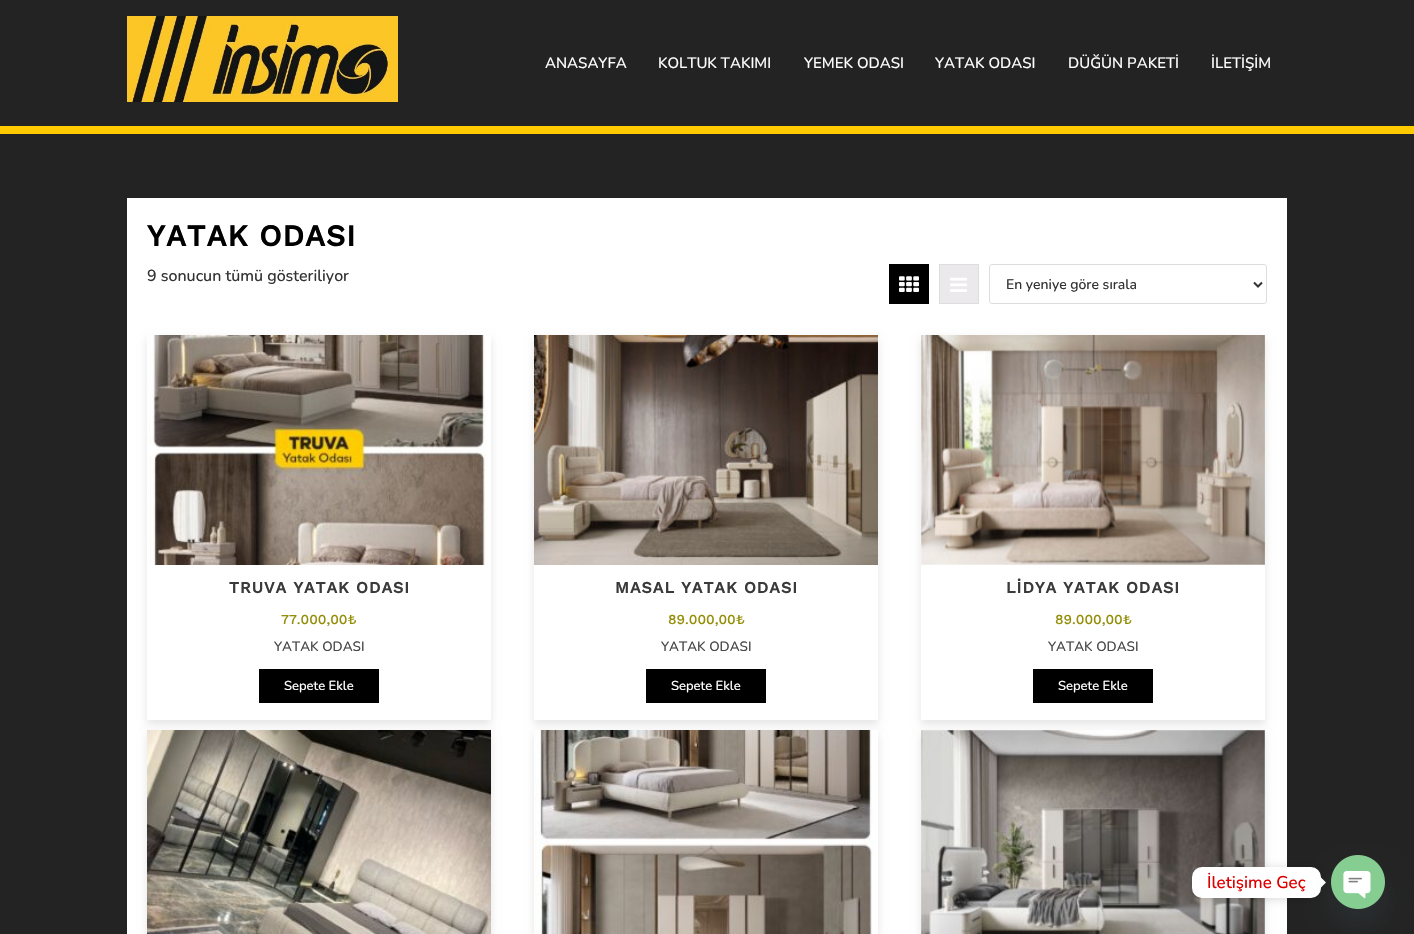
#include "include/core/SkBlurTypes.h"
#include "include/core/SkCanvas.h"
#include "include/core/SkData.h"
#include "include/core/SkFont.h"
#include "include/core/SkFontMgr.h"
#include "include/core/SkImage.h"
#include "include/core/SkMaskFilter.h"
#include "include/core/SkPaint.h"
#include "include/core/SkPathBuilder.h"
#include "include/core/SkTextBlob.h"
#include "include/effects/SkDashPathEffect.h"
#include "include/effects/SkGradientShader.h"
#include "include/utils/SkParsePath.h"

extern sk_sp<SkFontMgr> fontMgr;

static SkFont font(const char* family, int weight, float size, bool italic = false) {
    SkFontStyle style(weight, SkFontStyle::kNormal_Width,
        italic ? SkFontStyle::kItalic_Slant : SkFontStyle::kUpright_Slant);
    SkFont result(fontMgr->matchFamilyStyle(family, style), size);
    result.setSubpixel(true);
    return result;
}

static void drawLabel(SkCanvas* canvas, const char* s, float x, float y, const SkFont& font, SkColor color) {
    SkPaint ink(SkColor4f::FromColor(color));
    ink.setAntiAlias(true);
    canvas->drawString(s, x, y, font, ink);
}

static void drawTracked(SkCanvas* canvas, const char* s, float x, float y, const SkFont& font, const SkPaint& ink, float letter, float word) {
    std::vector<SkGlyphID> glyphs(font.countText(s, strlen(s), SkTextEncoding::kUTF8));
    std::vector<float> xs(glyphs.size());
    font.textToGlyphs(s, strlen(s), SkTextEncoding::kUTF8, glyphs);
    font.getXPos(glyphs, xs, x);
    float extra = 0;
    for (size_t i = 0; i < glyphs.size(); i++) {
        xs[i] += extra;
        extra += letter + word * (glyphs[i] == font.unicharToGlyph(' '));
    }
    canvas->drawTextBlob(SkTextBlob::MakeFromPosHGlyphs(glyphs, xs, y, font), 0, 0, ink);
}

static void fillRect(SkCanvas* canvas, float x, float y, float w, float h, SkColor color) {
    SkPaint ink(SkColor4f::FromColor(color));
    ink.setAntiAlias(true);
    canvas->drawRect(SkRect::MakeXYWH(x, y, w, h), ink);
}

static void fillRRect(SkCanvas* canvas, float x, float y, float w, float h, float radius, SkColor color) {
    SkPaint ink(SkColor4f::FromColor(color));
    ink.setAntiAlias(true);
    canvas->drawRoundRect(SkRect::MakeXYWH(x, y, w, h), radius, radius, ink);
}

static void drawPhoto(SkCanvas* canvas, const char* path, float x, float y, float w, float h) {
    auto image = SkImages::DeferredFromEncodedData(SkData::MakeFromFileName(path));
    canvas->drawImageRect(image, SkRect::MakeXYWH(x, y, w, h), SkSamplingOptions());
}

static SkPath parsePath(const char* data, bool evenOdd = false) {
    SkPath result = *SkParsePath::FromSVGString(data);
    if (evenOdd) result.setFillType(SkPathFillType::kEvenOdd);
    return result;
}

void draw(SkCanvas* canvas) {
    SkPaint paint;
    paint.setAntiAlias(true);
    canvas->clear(0xFF232323);
    fillRect(canvas, 0, 126, 1414, 8, 0xFFFFCB00);
    drawPhoto(canvas, "assets/img1.png", 127, 16, 271, 86);
    SkFont font1 = font("Nunito", 500, 15);
    drawLabel(canvas, "ANASAYFA", 545, 68, font1, 0xFFFFFFFF);
    drawLabel(canvas, "KOLTUK TAKIMI", 658, 68, font1, 0xFFFFFFFF);
    drawLabel(canvas, "YEMEK ODASI", 804, 68, font1, 0xFFFFFFFF);
    drawLabel(canvas, "YATAK ODASI", 935, 68, font1, 0xFFFFFFFF);
    drawLabel(canvas, "DÜĞÜN PAKETİ", 1068, 68, font1, 0xFFFFFFFF);
    drawLabel(canvas, "İLETİŞİM", 1211, 68, font1, 0xFFFFFFFF);
    fillRect(canvas, 127, 198, 1160, 736, 0xFFFFFFFF);
    SkFont font2 = font("Work Sans", 700, 30);
    paint.setColor(0xFF000000);
    drawTracked(canvas, "YATAK ODASI", 147, 246, font2, paint, 1, 0);
    SkFont font3 = font("Nunito", 500, 16);
    drawLabel(canvas, "9 sonucun tümü gösteriliyor", 147, 281, font3, 0xFF333333);
    fillRect(canvas, 889, 264, 40, 40, 0xFF000000);
    drawPhoto(canvas, "assets/img2.png", 899, 276, 20, 16);
    paint.setColor(0xFFEBE9EB);
    canvas->drawRect(SkRect::MakeXYWH(939.5f, 264.5f, 39, 39), paint);
    paint.setStroke(true);
    paint.setStrokeWidth(1);
    paint.setColor(0xFFDDDDDD);
    canvas->drawRect(SkRect::MakeXYWH(939.5f, 264.5f, 39, 39), paint);
    drawPhoto(canvas, "assets/img3.png", 950, 277, 17, 15);
    canvas->drawRoundRect(SkRect::MakeXYWH(989.5f, 264.5f, 277, 39), 2.5f, 2.5f, paint);
    paint.setStrokeWidth(2);
    paint.setColor(0xFF333333);
    canvas->drawPath(parsePath("M1254 282.5L1258 286.5L1262 282.5"), paint);
    SkFont font4 = font("Nunito", 500, 14);
    drawLabel(canvas, "En yeniye göre sırala", 1006, 289, font4, 0xFF333333);
    canvas->save();
    canvas->clipPath(parsePath("M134 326H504V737H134ZM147 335H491V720H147Z", true), true);
    paint.setStroke(false);
    paint.setColor(0x1A000000);
    paint.setMaskFilter(SkMaskFilter::MakeBlur(kNormal_SkBlurStyle, 4));
    canvas->drawRect(SkRect::MakeXYWH(147, 339, 344, 385), paint);
    paint.setMaskFilter(nullptr);
    canvas->restore();
    drawPhoto(canvas, "assets/img4.png", 147, 335, 340, 230);
    SkFont font5 = font("Work Sans", 700, 16);
    paint.setColor(0xFF3A3A3A);
    drawTracked(canvas, "TRUVA YATAK ODASI", 229, 593, font5, paint, 1, 0);
    SkFont font6 = font("Work Sans", 500, 13.75f);
    drawLabel(canvas, "77.000,00₺", 281, 624, font6, 0xFF958E09);
    SkFont font7 = font("Nunito", 500, 13.5f);
    drawLabel(canvas, "YATAK ODASI", 274, 651, font7, 0xFF474747);
    fillRect(canvas, 259, 669, 120, 34, 0xFF000000);
    SkFont font8 = font("Nunito", 500, 13);
    drawLabel(canvas, "Sepete Ekle", 284, 690, font8, 0xFFFFFFFF);
    canvas->save();
    canvas->clipPath(parsePath("M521 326H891V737H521ZM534 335H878V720H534Z", true), true);
    paint.setColor(0x1A000000);
    paint.setMaskFilter(SkMaskFilter::MakeBlur(kNormal_SkBlurStyle, 4));
    canvas->drawRect(SkRect::MakeXYWH(534, 339, 344, 385), paint);
    paint.setMaskFilter(nullptr);
    canvas->restore();
    drawPhoto(canvas, "assets/img5.png", 534, 335, 344, 230);
    paint.setColor(0xFF3A3A3A);
    drawTracked(canvas, "MASAL YATAK ODASI", 615, 593, font5, paint, 1, 0);
    drawLabel(canvas, "89.000,00₺", 668, 624, font6, 0xFF958E09);
    drawLabel(canvas, "YATAK ODASI", 661, 651, font7, 0xFF474747);
    fillRect(canvas, 646, 669, 120, 34, 0xFF000000);
    drawLabel(canvas, "Sepete Ekle", 671, 690, font8, 0xFFFFFFFF);
    canvas->save();
    canvas->clipPath(parsePath("M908 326H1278V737H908ZM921 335H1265V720H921Z", true), true);
    paint.setColor(0x1A000000);
    paint.setMaskFilter(SkMaskFilter::MakeBlur(kNormal_SkBlurStyle, 4));
    canvas->drawRect(SkRect::MakeXYWH(921, 339, 344, 385), paint);
    paint.setMaskFilter(nullptr);
    canvas->restore();
    drawPhoto(canvas, "assets/img6.png", 921, 335, 344, 230);
    paint.setColor(0xFF3A3A3A);
    drawTracked(canvas, "LİDYA YATAK ODASI", 1006, 593, font5, paint, 1, 0);
    drawLabel(canvas, "89.000,00₺", 1055, 624, font6, 0xFF958E09);
    drawLabel(canvas, "YATAK ODASI", 1048, 651, font7, 0xFF474747);
    fillRect(canvas, 1033, 669, 120, 34, 0xFF000000);
    drawLabel(canvas, "Sepete Ekle", 1058, 690, font8, 0xFFFFFFFF);
    paint.setColor(0x1A000000);
    paint.setMaskFilter(SkMaskFilter::MakeBlur(kNormal_SkBlurStyle, 4));
    canvas->drawRect(SkRect::MakeXYWH(147, 734, 344, 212), paint);
    paint.setMaskFilter(nullptr);
    drawPhoto(canvas, "assets/img7.png", 147, 730, 344, 204);
    canvas->save();
    canvas->clipPath(parsePath("M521 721H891V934H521ZM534 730H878V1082H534Z", true), true);
    paint.setMaskFilter(SkMaskFilter::MakeBlur(kNormal_SkBlurStyle, 4));
    canvas->drawRect(SkRect::MakeXYWH(534, 734, 344, 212), paint);
    paint.setMaskFilter(nullptr);
    canvas->restore();
    drawPhoto(canvas, "assets/img8.png", 534, 730, 339, 204);
    paint.setMaskFilter(SkMaskFilter::MakeBlur(kNormal_SkBlurStyle, 4));
    canvas->drawRect(SkRect::MakeXYWH(921, 734, 344, 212), paint);
    paint.setMaskFilter(nullptr);
    drawPhoto(canvas, "assets/img9.png", 921, 730, 344, 204);
    paint.setColor(0x26000000);
    paint.setMaskFilter(SkMaskFilter::MakeBlur(kNormal_SkBlurStyle, 4));
    canvas->drawRoundRect(SkRect::MakeXYWH(1192, 868, 129, 31), 10, 10, paint);
    paint.setMaskFilter(nullptr);
    fillRRect(canvas, 1192, 867, 129, 31, 10, 0xFFFFFFFF);
    SkFont font9 = font("Nunito", 500, 17);
    drawLabel(canvas, "İletişime Geç", 1207, 888, font9, 0xFFDD0000);
    paint.setColor(0xFFFFFFFF);
    canvas->drawPath(parsePath("M1321 887.5V877.5L1326 882.5Z"), paint);
    paint.setColor(0x2949687E);
    paint.setMaskFilter(SkMaskFilter::MakeBlur(kNormal_SkBlurStyle, 12));
    canvas->drawRoundRect(SkRect::MakeXYWH(1331, 871, 54, 54), 27, 27, paint);
    paint.setMaskFilter(nullptr);
    drawPhoto(canvas, "assets/img10.png", 1331, 855, 54, 54);
}
